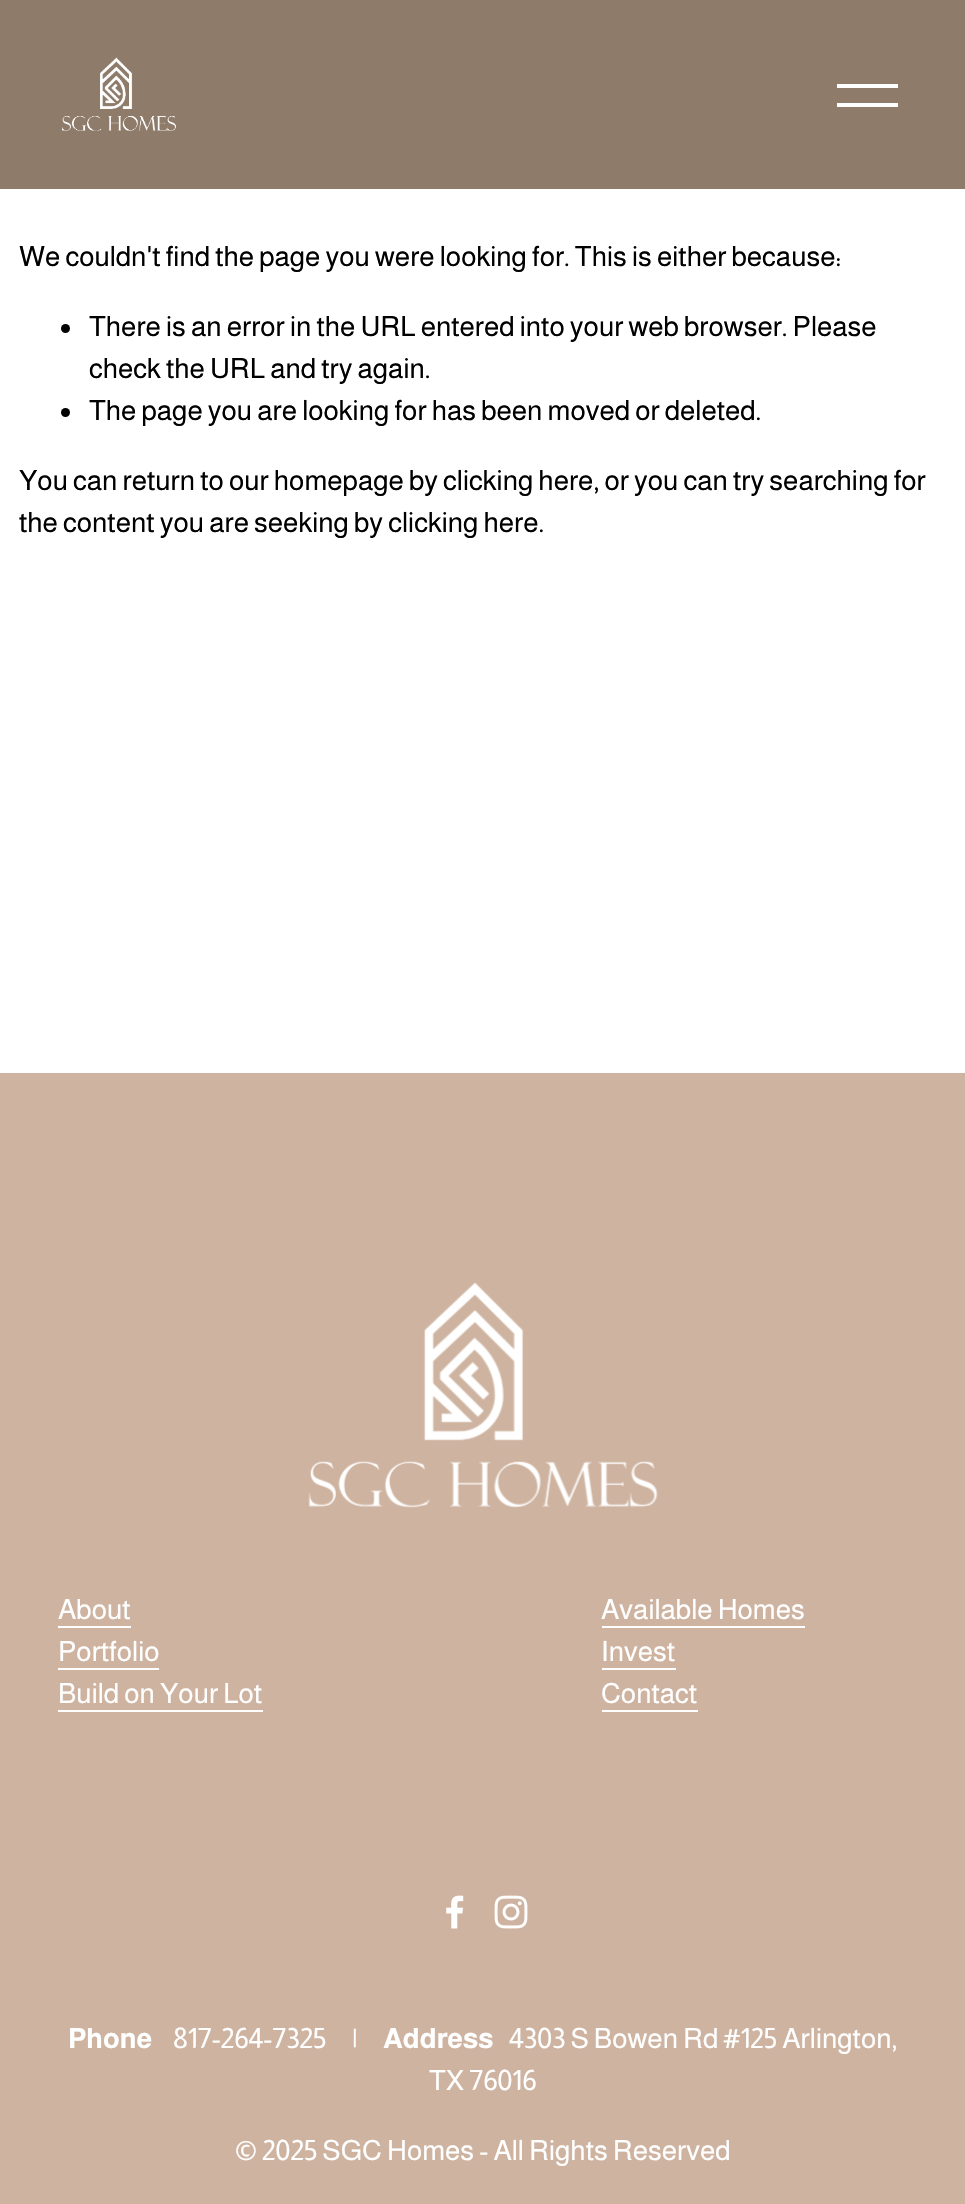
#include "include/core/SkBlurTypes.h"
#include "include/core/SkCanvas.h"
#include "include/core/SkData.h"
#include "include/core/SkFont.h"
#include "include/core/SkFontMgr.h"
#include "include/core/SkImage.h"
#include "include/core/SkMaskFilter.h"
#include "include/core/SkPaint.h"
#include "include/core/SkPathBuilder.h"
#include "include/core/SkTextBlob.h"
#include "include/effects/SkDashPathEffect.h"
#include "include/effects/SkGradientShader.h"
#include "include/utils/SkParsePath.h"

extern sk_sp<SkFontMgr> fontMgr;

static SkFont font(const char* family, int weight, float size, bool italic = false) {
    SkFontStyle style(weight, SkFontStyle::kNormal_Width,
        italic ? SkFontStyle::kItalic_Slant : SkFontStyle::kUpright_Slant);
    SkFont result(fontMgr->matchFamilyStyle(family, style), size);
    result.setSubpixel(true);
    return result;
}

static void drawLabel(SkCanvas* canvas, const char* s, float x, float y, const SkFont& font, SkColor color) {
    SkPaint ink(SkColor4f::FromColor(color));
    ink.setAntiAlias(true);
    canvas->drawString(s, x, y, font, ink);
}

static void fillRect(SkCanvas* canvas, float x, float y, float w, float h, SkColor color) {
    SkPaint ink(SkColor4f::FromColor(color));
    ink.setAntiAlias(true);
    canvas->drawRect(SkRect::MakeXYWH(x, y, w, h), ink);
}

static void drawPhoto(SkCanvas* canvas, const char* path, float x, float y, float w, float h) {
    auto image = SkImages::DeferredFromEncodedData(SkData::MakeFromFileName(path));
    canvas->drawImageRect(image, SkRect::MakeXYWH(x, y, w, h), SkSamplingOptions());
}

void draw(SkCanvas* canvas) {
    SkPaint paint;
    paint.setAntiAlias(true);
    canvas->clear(0xFFFFFFFF);
    fillRect(canvas, 0, 0, 965, 189, 0xFF8E7B69);
    drawPhoto(canvas, "assets/img1.png", 61, 57, 115, 74);
    fillRect(canvas, 837, 84, 61, 4, 0xFFFFFFFF);
    fillRect(canvas, 837, 103, 61, 4, 0xFFFFFFFF);
    SkFont font1 = font("Almarai", 400, 28);
    drawLabel(canvas, "We couldn't find the page you were looking for. This is either because:", 19, 266, font1, 0xFF000000);
    paint.setColor(0xFF000000);
    canvas->drawCircle(65.5f, 328.5f, 4.5f, paint);
    drawLabel(canvas, "There is an error in the URL entered into your web browser. Please", 89, 336, font1, 0xFF000000);
    drawLabel(canvas, "check the URL and try again.", 89, 378, font1, 0xFF000000);
    canvas->drawCircle(65.5f, 412.5f, 4.5f, paint);
    drawLabel(canvas, "The page you are looking for has been moved or deleted.", 89, 420, font1, 0xFF000000);
    drawLabel(canvas, "You can return to our homepage by clicking here, or you can try searching for", 19, 490, font1, 0xFF000000);
    drawLabel(canvas, "the content you are seeking by clicking here.", 19, 532, font1, 0xFF000000);
    fillRect(canvas, 0, 1073, 965, 1131, 0xFFCEB3A0);
    drawPhoto(canvas, "assets/img2.png", 308, 1282, 350, 226);
    drawLabel(canvas, "About", 58, 1619, font1, 0xFFFFFFFF);
    fillRect(canvas, 58, 1626, 73, 2, 0xFFFFFFFF);
    drawLabel(canvas, "Portfolio", 58, 1661, font1, 0xFFFFFFFF);
    fillRect(canvas, 58, 1668, 101, 2, 0xFFFFFFFF);
    drawLabel(canvas, "Build on Your Lot", 58, 1703, font1, 0xFFFFFFFF);
    fillRect(canvas, 58, 1710, 205, 2, 0xFFFFFFFF);
    drawLabel(canvas, "Available Homes", 601, 1619, font1, 0xFFFFFFFF);
    fillRect(canvas, 602, 1626, 203, 2, 0xFFFFFFFF);
    drawLabel(canvas, "Invest", 601, 1661, font1, 0xFFFFFFFF);
    fillRect(canvas, 602, 1668, 74, 2, 0xFFFFFFFF);
    drawLabel(canvas, "Contact", 601, 1703, font1, 0xFFFFFFFF);
    fillRect(canvas, 602, 1710, 96, 2, 0xFFFFFFFF);
    drawPhoto(canvas, "assets/img3.png", 446, 1895, 18, 34);
    drawPhoto(canvas, "assets/img4.png", 494, 1895, 34, 34);
    SkFont font2 = font("Almarai", 700, 28);
    drawLabel(canvas, "Phone", 68, 2048, font2, 0xFFFFFFFF);
    drawLabel(canvas, "817-264-7325     |", 173, 2048, font1, 0xFFFFFFFF);
    drawLabel(canvas, "Address", 383, 2048, font2, 0xFFFFFFFF);
    drawLabel(canvas, "4303 S Bowen Rd #125 Arlington,", 509, 2048, font1, 0xFFFFFFFF);
    drawLabel(canvas, "TX 76016", 429, 2090, font1, 0xFFFFFFFF);
    drawLabel(canvas, "© 2025 SGC Homes - All Rights Reserved", 235, 2160, font1, 0xFFFFFFFF);
}
